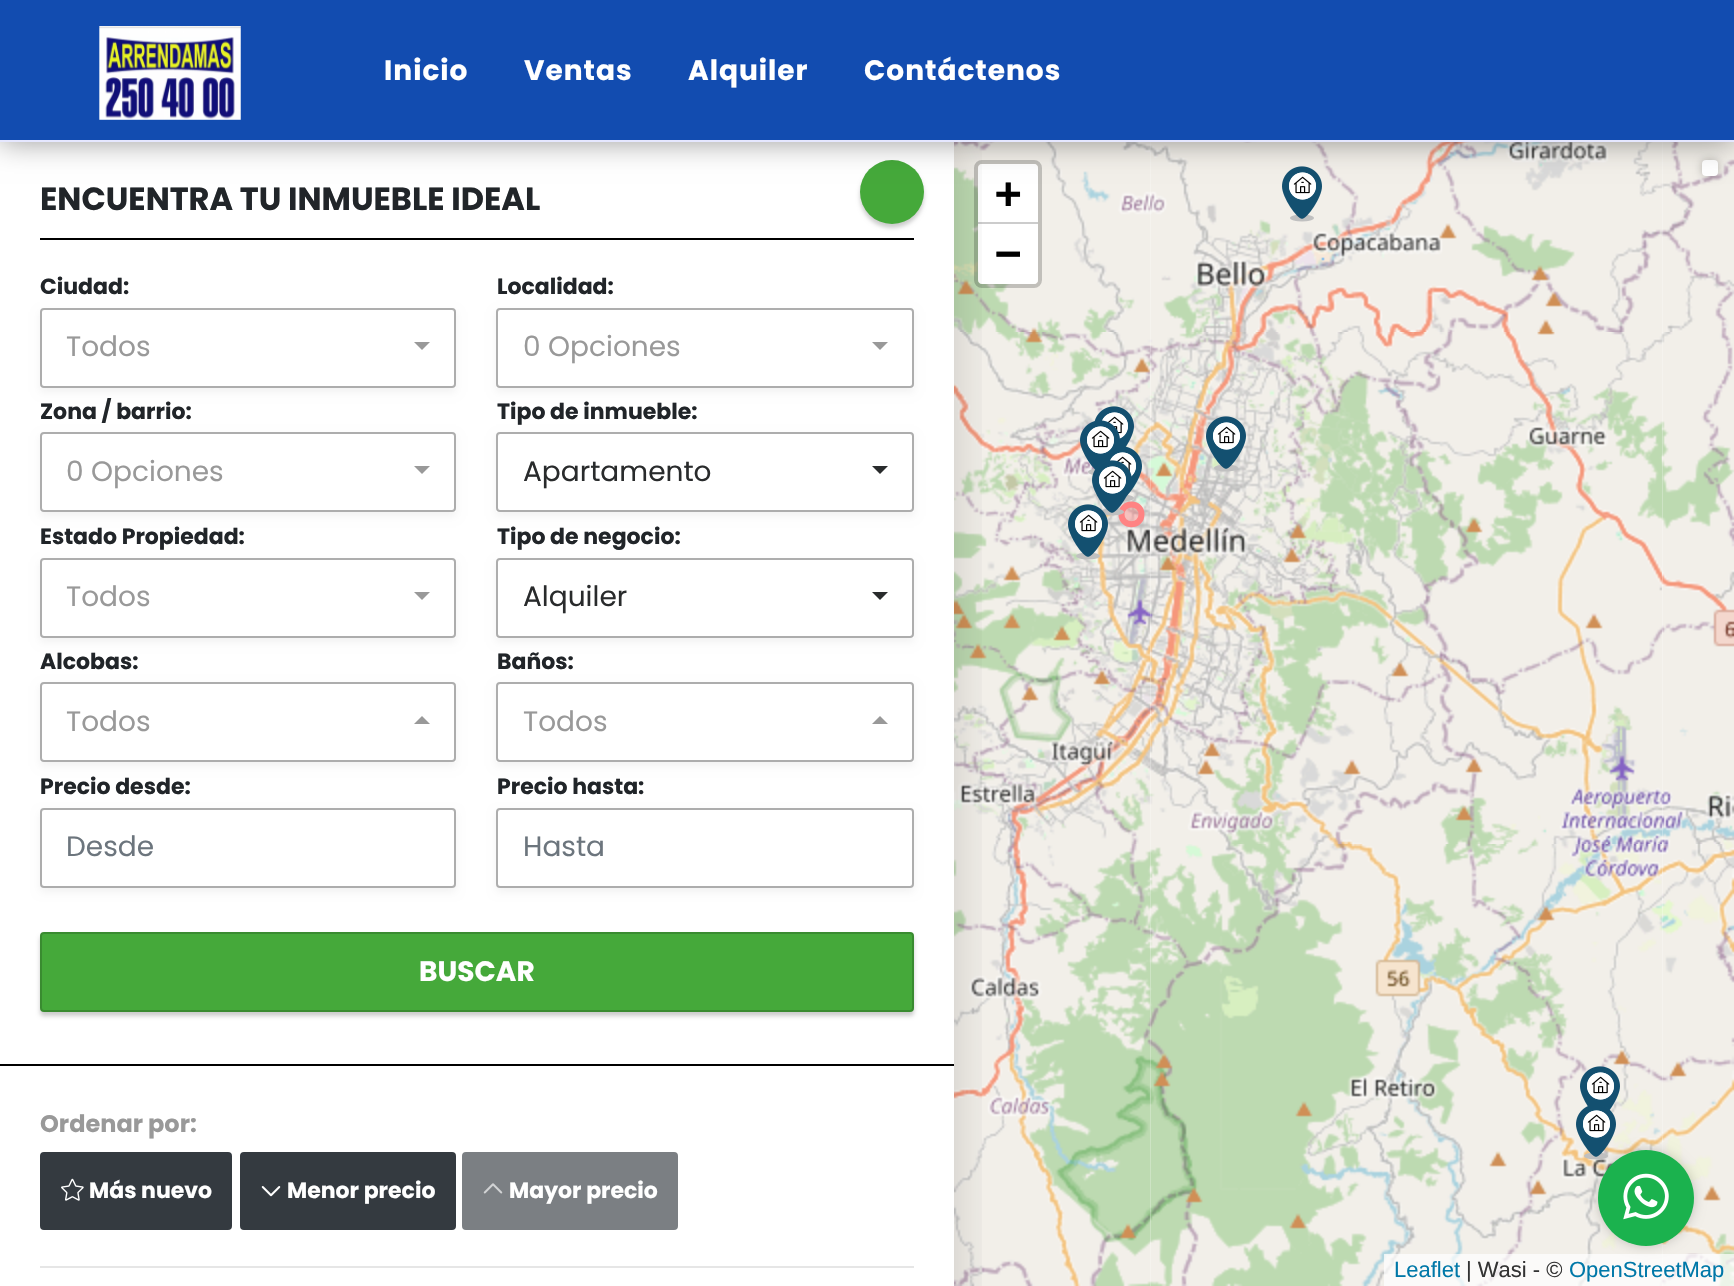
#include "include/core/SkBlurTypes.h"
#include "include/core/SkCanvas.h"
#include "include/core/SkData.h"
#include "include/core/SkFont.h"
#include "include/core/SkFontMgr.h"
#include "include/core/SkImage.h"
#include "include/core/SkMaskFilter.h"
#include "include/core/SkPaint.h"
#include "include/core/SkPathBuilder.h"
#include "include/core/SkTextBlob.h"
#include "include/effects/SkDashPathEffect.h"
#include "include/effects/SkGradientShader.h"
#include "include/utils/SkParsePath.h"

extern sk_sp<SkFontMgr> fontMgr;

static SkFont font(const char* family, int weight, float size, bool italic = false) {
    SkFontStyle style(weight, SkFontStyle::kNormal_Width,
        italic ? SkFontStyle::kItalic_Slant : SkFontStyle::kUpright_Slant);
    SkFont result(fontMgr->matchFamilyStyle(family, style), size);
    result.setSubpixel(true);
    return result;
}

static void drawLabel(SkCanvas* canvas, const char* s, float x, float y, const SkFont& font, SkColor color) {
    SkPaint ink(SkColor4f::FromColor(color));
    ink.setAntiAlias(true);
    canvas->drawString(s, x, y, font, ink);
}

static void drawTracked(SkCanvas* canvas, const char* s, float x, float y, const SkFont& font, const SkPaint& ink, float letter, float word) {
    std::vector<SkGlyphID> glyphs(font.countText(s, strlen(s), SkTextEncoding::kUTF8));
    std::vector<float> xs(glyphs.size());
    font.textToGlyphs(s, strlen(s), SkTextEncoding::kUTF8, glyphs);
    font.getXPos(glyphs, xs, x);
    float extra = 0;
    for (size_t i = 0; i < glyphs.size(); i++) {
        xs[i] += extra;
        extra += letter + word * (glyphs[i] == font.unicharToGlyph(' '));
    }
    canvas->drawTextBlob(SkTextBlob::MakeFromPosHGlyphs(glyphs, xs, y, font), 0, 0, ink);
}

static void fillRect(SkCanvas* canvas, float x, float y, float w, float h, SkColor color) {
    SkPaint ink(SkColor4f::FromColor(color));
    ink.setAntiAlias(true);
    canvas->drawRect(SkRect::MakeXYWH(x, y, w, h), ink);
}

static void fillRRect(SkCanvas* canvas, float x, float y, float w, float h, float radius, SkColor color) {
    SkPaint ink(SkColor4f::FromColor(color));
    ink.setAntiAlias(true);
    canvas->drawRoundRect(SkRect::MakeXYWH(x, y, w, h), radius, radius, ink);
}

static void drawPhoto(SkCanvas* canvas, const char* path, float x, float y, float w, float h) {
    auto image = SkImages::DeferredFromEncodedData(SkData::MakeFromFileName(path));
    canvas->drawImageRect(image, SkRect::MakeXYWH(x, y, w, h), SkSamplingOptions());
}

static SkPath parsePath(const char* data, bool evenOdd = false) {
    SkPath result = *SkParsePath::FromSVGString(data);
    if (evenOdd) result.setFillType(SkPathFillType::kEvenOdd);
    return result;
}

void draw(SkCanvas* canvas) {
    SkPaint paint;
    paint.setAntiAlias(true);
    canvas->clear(0xFFFFFFFF);
    drawPhoto(canvas, "assets/img7.png", 1150, 142, 512, 190);
    drawPhoto(canvas, "assets/img8.png", 1661, 142, 73, 190);
    paint.setColor(0x40000000);
    paint.setMaskFilter(SkMaskFilter::MakeBlur(kNormal_SkBlurStyle, 4));
    canvas->drawRoundRect(SkRect::MakeXYWH(1702, 160, 16, 16), 4, 4, paint);
    paint.setMaskFilter(nullptr);
    fillRRect(canvas, 1702, 160, 16, 16, 4, 0xFFFFFFFF);
    drawPhoto(canvas, "assets/img6.png", 954, 142, 196, 190);
    drawPhoto(canvas, "assets/img9.png", 954, 332, 196, 512);
    drawPhoto(canvas, "assets/img12.png", 954, 844, 196, 442);
    paint.setStroke(true);
    paint.setStrokeWidth(4);
    paint.setColor(0x33000000);
    canvas->drawRoundRect(SkRect::MakeXYWH(976, 162, 64, 124), 6, 6, paint);
    paint.setStroke(false);
    paint.setColor(0xFFFFFFFF);
    canvas->drawPath(parsePath("M982 164H1034C1036 164 1038 166 1038 168V224H978V168C978 166 980 164 982 164Z"), paint);
    fillRect(canvas, 978, 222, 60, 2, 0xFFCCCCCC);
    canvas->drawPath(parsePath("M978 224H1038V280C1038 282 1036 284 1034 284H982C980 284 978 282 978 280Z"), paint);
    canvas->save();
    canvas->clipRect(SkRect::MakeXYWH(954, 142, 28, 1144));
    paint.setColor(0x2B000000);
    paint.setMaskFilter(SkMaskFilter::MakeBlur(kNormal_SkBlurStyle, 24));
    canvas->drawRect(SkRect::MakeXYWH(0, 140, 954, 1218), paint);
    paint.setMaskFilter(nullptr);
    canvas->restore();
    paint.setColor(0x33000000);
    paint.setMaskFilter(SkMaskFilter::MakeBlur(kNormal_SkBlurStyle, 2));
    canvas->drawRoundRect(SkRect::MakeXYWH(860, 164, 64, 64), 32, 32, paint);
    paint.setMaskFilter(nullptr);
    paint.setColor(0xFF45A93A);
    canvas->drawCircle(892, 192, 32, paint);
    drawPhoto(canvas, "assets/img15.png", 1282, 166, 40, 56);
    paint.setColor(0x66000000);
    paint.setMaskFilter(SkMaskFilter::MakeBlur(kNormal_SkBlurStyle, 14));
    canvas->drawRect(SkRect::MakeXYWH(0, 0, 1734, 142), paint);
    paint.setMaskFilter(nullptr);
    fillRect(canvas, 0, 0, 1734, 140, 0xFF124CB0);
    fillRect(canvas, 0, 140, 1734, 2, 0xFFE5E7FF);
    drawPhoto(canvas, "assets/img1.png", 99, 26, 142, 94);
    SkFont font1 = font("Poppins", 700, 28);
    paint.setColor(0xFFFFFFFF);
    drawTracked(canvas, "Inicio", 384, 80, font1, paint, 1, 0);
    drawTracked(canvas, "Ventas", 524, 80, font1, paint, 1, 0);
    drawTracked(canvas, "Alquiler", 688, 80, font1, paint, 1, 0);
    drawTracked(canvas, "Contáctenos", 864, 80, font1, paint, 1, 0);
    fillRect(canvas, 0, 1064, 954, 2, 0xFF000000);
    fillRect(canvas, 40, 238, 874, 2, 0xFF000000);
    SkFont font2 = font("Poppins", 700, 32);
    drawLabel(canvas, "ENCUENTRA TU INMUEBLE IDEAL", 40, 210, font2, 0xFF212529);
    SkFont font3 = font("Poppins", 700, 22);
    drawLabel(canvas, "Ciudad:", 40, 294, font3, 0xFF212529);
    canvas->save();
    canvas->clipPath(parsePath("M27 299H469V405H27ZM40 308H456V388H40Z", true), true);
    paint.setColor(0x0D000000);
    paint.setMaskFilter(SkMaskFilter::MakeBlur(kNormal_SkBlurStyle, 4));
    canvas->drawRect(SkRect::MakeXYWH(40, 312, 416, 80), paint);
    paint.setMaskFilter(nullptr);
    canvas->restore();
    paint.setStroke(true);
    paint.setStrokeWidth(2);
    paint.setColor(0xFFADADAD);
    canvas->drawRoundRect(SkRect::MakeXYWH(41, 309, 414, 78), 3, 3, paint);
    SkFont font4 = font("Poppins", 400, 28);
    drawLabel(canvas, "Todos", 66, 356, font4, 0xFF999999);
    paint.setStroke(false);
    paint.setColor(0xFF999999);
    canvas->drawPath(parsePath("M414 342H430L422 350Z"), paint);
    drawLabel(canvas, "Localidad:", 497, 294, font3, 0xFF212529);
    canvas->save();
    canvas->clipPath(parsePath("M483 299H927V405H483ZM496 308H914V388H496Z", true), true);
    paint.setColor(0x0D000000);
    paint.setMaskFilter(SkMaskFilter::MakeBlur(kNormal_SkBlurStyle, 4));
    canvas->drawRect(SkRect::MakeXYWH(496, 312, 418, 80), paint);
    paint.setMaskFilter(nullptr);
    canvas->restore();
    paint.setStroke(true);
    paint.setColor(0xFFADADAD);
    canvas->drawRoundRect(SkRect::MakeXYWH(497, 309, 416, 78), 3, 3, paint);
    drawLabel(canvas, "0 Opciones", 523, 356, font4, 0xFF999999);
    paint.setStroke(false);
    paint.setColor(0xFF999999);
    canvas->drawPath(parsePath("M872 342H888L880 350Z"), paint);
    drawLabel(canvas, "Zona / barrio:", 40, 419, font3, 0xFF212529);
    canvas->save();
    canvas->clipPath(parsePath("M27 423H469V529H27ZM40 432H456V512H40Z", true), true);
    paint.setColor(0x0D000000);
    paint.setMaskFilter(SkMaskFilter::MakeBlur(kNormal_SkBlurStyle, 4));
    canvas->drawRect(SkRect::MakeXYWH(40, 436, 416, 80), paint);
    paint.setMaskFilter(nullptr);
    canvas->restore();
    paint.setStroke(true);
    paint.setColor(0xFFADADAD);
    canvas->drawRoundRect(SkRect::MakeXYWH(41, 433, 414, 78), 3, 3, paint);
    drawLabel(canvas, "0 Opciones", 66, 481, font4, 0xFF999999);
    paint.setStroke(false);
    paint.setColor(0xFF999999);
    canvas->drawPath(parsePath("M414 466H430L422 474Z"), paint);
    drawLabel(canvas, "Tipo de inmueble:", 497, 419, font3, 0xFF212529);
    canvas->save();
    canvas->clipPath(parsePath("M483 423H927V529H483ZM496 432H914V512H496Z", true), true);
    paint.setColor(0x0D000000);
    paint.setMaskFilter(SkMaskFilter::MakeBlur(kNormal_SkBlurStyle, 4));
    canvas->drawRect(SkRect::MakeXYWH(496, 436, 418, 80), paint);
    paint.setMaskFilter(nullptr);
    canvas->restore();
    paint.setStroke(true);
    paint.setColor(0xFFADADAD);
    canvas->drawRoundRect(SkRect::MakeXYWH(497, 433, 416, 78), 3, 3, paint);
    drawLabel(canvas, "Apartamento", 523, 481, font4, 0xFF292B2C);
    paint.setStroke(false);
    paint.setColor(0xFF292B2C);
    canvas->drawPath(parsePath("M872 466H888L880 474Z"), paint);
    drawLabel(canvas, "Estado Propiedad:", 40, 544, font3, 0xFF212529);
    canvas->save();
    canvas->clipPath(parsePath("M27 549H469V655H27ZM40 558H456V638H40Z", true), true);
    paint.setColor(0x0D000000);
    paint.setMaskFilter(SkMaskFilter::MakeBlur(kNormal_SkBlurStyle, 4));
    canvas->drawRect(SkRect::MakeXYWH(40, 562, 416, 80), paint);
    paint.setMaskFilter(nullptr);
    canvas->restore();
    paint.setStroke(true);
    paint.setColor(0xFFADADAD);
    canvas->drawRoundRect(SkRect::MakeXYWH(41, 559, 414, 78), 3, 3, paint);
    drawLabel(canvas, "Todos", 66, 606, font4, 0xFF999999);
    paint.setStroke(false);
    paint.setColor(0xFF999999);
    canvas->drawPath(parsePath("M414 592H430L422 600Z"), paint);
    drawLabel(canvas, "Tipo de negocio:", 497, 544, font3, 0xFF212529);
    canvas->save();
    canvas->clipPath(parsePath("M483 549H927V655H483ZM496 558H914V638H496Z", true), true);
    paint.setColor(0x0D000000);
    paint.setMaskFilter(SkMaskFilter::MakeBlur(kNormal_SkBlurStyle, 4));
    canvas->drawRect(SkRect::MakeXYWH(496, 562, 418, 80), paint);
    paint.setMaskFilter(nullptr);
    canvas->restore();
    paint.setStroke(true);
    paint.setColor(0xFFADADAD);
    canvas->drawRoundRect(SkRect::MakeXYWH(497, 559, 416, 78), 3, 3, paint);
    drawLabel(canvas, "Alquiler", 523, 606, font4, 0xFF292B2C);
    paint.setStroke(false);
    paint.setColor(0xFF292B2C);
    canvas->drawPath(parsePath("M872 592H888L880 600Z"), paint);
    drawLabel(canvas, "Alcobas:", 40, 669, font3, 0xFF212529);
    canvas->save();
    canvas->clipPath(parsePath("M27 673H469V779H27ZM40 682H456V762H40Z", true), true);
    paint.setColor(0x0D000000);
    paint.setMaskFilter(SkMaskFilter::MakeBlur(kNormal_SkBlurStyle, 4));
    canvas->drawRect(SkRect::MakeXYWH(40, 686, 416, 80), paint);
    paint.setMaskFilter(nullptr);
    canvas->restore();
    paint.setStroke(true);
    paint.setColor(0xFFADADAD);
    canvas->drawRoundRect(SkRect::MakeXYWH(41, 683, 414, 78), 3, 3, paint);
    drawLabel(canvas, "Todos", 66, 731, font4, 0xFF999999);
    paint.setStroke(false);
    paint.setColor(0xFF999999);
    canvas->drawPath(parsePath("M430 724H414L422 716Z"), paint);
    drawLabel(canvas, "Baños:", 497, 669, font3, 0xFF212529);
    canvas->save();
    canvas->clipPath(parsePath("M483 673H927V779H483ZM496 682H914V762H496Z", true), true);
    paint.setColor(0x0D000000);
    paint.setMaskFilter(SkMaskFilter::MakeBlur(kNormal_SkBlurStyle, 4));
    canvas->drawRect(SkRect::MakeXYWH(496, 686, 418, 80), paint);
    paint.setMaskFilter(nullptr);
    canvas->restore();
    paint.setStroke(true);
    paint.setColor(0xFFADADAD);
    canvas->drawRoundRect(SkRect::MakeXYWH(497, 683, 416, 78), 3, 3, paint);
    drawLabel(canvas, "Todos", 523, 731, font4, 0xFF999999);
    paint.setStroke(false);
    paint.setColor(0xFF999999);
    canvas->drawPath(parsePath("M888 724H872L880 716Z"), paint);
    drawLabel(canvas, "Precio desde:", 40, 794, font3, 0xFF212529);
    canvas->save();
    canvas->clipPath(parsePath("M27 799H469V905H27ZM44 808H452C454 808 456 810 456 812V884C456 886 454 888 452 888H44C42 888 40 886 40 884V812C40 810 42 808 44 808Z", true), true);
    paint.setColor(0x0D000000);
    paint.setMaskFilter(SkMaskFilter::MakeBlur(kNormal_SkBlurStyle, 4));
    canvas->drawRoundRect(SkRect::MakeXYWH(40, 812, 416, 80), 4, 4, paint);
    paint.setMaskFilter(nullptr);
    canvas->restore();
    paint.setStroke(true);
    paint.setColor(0xFFADADAD);
    canvas->drawRoundRect(SkRect::MakeXYWH(41, 809, 414, 78), 3, 3, paint);
    drawLabel(canvas, "Desde", 66, 856, font4, 0xFF6C757D);
    drawLabel(canvas, "Precio hasta:", 497, 794, font3, 0xFF212529);
    canvas->save();
    canvas->clipPath(parsePath("M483 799H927V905H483ZM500 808H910C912 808 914 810 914 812V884C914 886 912 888 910 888H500C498 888 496 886 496 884V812C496 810 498 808 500 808Z", true), true);
    paint.setStroke(false);
    paint.setColor(0x0D000000);
    paint.setMaskFilter(SkMaskFilter::MakeBlur(kNormal_SkBlurStyle, 4));
    canvas->drawRoundRect(SkRect::MakeXYWH(496, 812, 418, 80), 4, 4, paint);
    paint.setMaskFilter(nullptr);
    canvas->restore();
    paint.setStroke(true);
    paint.setColor(0xFFADADAD);
    canvas->drawRoundRect(SkRect::MakeXYWH(497, 809, 416, 78), 3, 3, paint);
    drawLabel(canvas, "Hasta", 523, 856, font4, 0xFF6C757D);
    paint.setStroke(false);
    paint.setColor(0x33000000);
    paint.setMaskFilter(SkMaskFilter::MakeBlur(kNormal_SkBlurStyle, 2));
    canvas->drawRoundRect(SkRect::MakeXYWH(40, 936, 874, 80), 4, 4, paint);
    paint.setMaskFilter(nullptr);
    paint.setColor(0xFF45A93A);
    canvas->drawRoundRect(SkRect::MakeXYWH(41, 933, 872, 78), 3, 3, paint);
    paint.setStroke(true);
    paint.setColor(0xFF398B30);
    canvas->drawRoundRect(SkRect::MakeXYWH(41, 933, 872, 78), 3, 3, paint);
    drawLabel(canvas, "BUSCAR", 419, 981, font1, 0xFFFFFFFF);
    SkFont font5 = font("Poppins", 700, 24);
    drawLabel(canvas, "Ordenar por:", 40, 1132, font5, 0xFF999999);
    paint.setStroke(false);
    paint.setColor(0xFF343A40);
    canvas->drawRoundRect(SkRect::MakeXYWH(41, 1153, 190, 76), 3, 3, paint);
    paint.setStroke(true);
    canvas->drawRoundRect(SkRect::MakeXYWH(41, 1153, 190, 76), 3, 3, paint);
    drawPhoto(canvas, "assets/img2.png", 61, 1178, 23, 23);
    drawLabel(canvas, "Más nuevo", 89, 1198, font3, 0xFFFFFFFF);
    paint.setStroke(false);
    canvas->drawRoundRect(SkRect::MakeXYWH(241, 1153, 214, 76), 3, 3, paint);
    paint.setStroke(true);
    canvas->drawRoundRect(SkRect::MakeXYWH(241, 1153, 214, 76), 3, 3, paint);
    drawPhoto(canvas, "assets/img3.png", 261, 1186, 20, 11);
    drawLabel(canvas, "Menor precio", 287, 1198, font3, 0xFFFFFFFF);
    paint.setStroke(false);
    paint.setColor(0xFF7B7F83);
    canvas->drawRoundRect(SkRect::MakeXYWH(463, 1153, 214, 76), 3, 3, paint);
    paint.setStroke(true);
    canvas->drawRoundRect(SkRect::MakeXYWH(463, 1153, 214, 76), 3, 3, paint);
    drawPhoto(canvas, "assets/img4.png", 483, 1183, 20, 11);
    drawLabel(canvas, "Mayor precio", 509, 1198, font3, 0xFFFFFFFF);
    fillRect(canvas, 40, 1266, 874, 2, 0xFFE6E6E6);
    drawPhoto(canvas, "assets/img13.png", 1149, 844, 513, 442);
    drawPhoto(canvas, "assets/img14.png", 1661, 844, 73, 442);
    drawPhoto(canvas, "assets/img22.png", 1580, 1066, 40, 45);
    drawPhoto(canvas, "assets/img23.png", 1576, 1106, 40, 54);
    fillRect(canvas, 1384, 1254, 350, 32, 0xB3FFFFFF);
    paint.setStroke(false);
    paint.setColor(0x33000000);
    paint.setMaskFilter(SkMaskFilter::MakeBlur(kNormal_SkBlurStyle, 6));
    canvas->drawRoundRect(SkRect::MakeXYWH(1598, 1150, 96, 96), 48, 48, paint);
    paint.setMaskFilter(nullptr);
    paint.setColor(0xFF1BB24E);
    canvas->drawCircle(1646, 1198, 48, paint);
    drawPhoto(canvas, "assets/img5.png", 1623, 1173, 46, 47);
    drawPhoto(canvas, "assets/img10.png", 1149, 332, 513, 512);
    drawPhoto(canvas, "assets/img11.png", 1661, 332, 73, 512);
    drawPhoto(canvas, "assets/img16.png", 1094, 406, 40, 41);
    drawPhoto(canvas, "assets/img17.png", 1206, 416, 40, 56);
    drawPhoto(canvas, "assets/img18.png", 1080, 420, 40, 55);
    paint.setColor(0x4DFF5959);
    canvas->drawPath(parsePath("M1121.5 514.5C1121.5 527.5 1141.5 527.5 1141.5 514.5C1141.5 501 1121.5 501 1121.5 514.5", true), paint);
    paint.setStroke(true);
    paint.setStrokeWidth(6);
    paint.setStrokeCap(SkPaint::kRound_Cap);
    paint.setStrokeJoin(SkPaint::kRound_Join);
    paint.setColor(0xFFFF8383);
    canvas->drawPath(parsePath("M1121.5 514.5C1121.5 527.5 1141.5 527.5 1141.5 514.5C1141.5 501 1121.5 501 1121.5 514.5", true), paint);
    drawPhoto(canvas, "assets/img19.png", 1102, 446, 40, 56);
    drawPhoto(canvas, "assets/img20.png", 1092, 460, 40, 56);
    drawPhoto(canvas, "assets/img21.png", 1068, 504, 40, 56);
    SkFont font6 = font("DejaVu Sans Mono", 700, 44);
    drawLabel(canvas, "+", 995, 208, font6, 0xFF000000);
    drawLabel(canvas, "−", 995, 268, font6, 0xFF000000);
    SkFont font7 = font("Liberation Sans", 400, 22);
    drawLabel(canvas, "Leaflet", 1394, 1277, font7, 0xFF0078A8);
    drawLabel(canvas, "| Wasi - ©", 1466, 1277, font7, 0xFF333333);
    drawLabel(canvas, "OpenStreetMap", 1569, 1277, font7, 0xFF0078A8);
}
